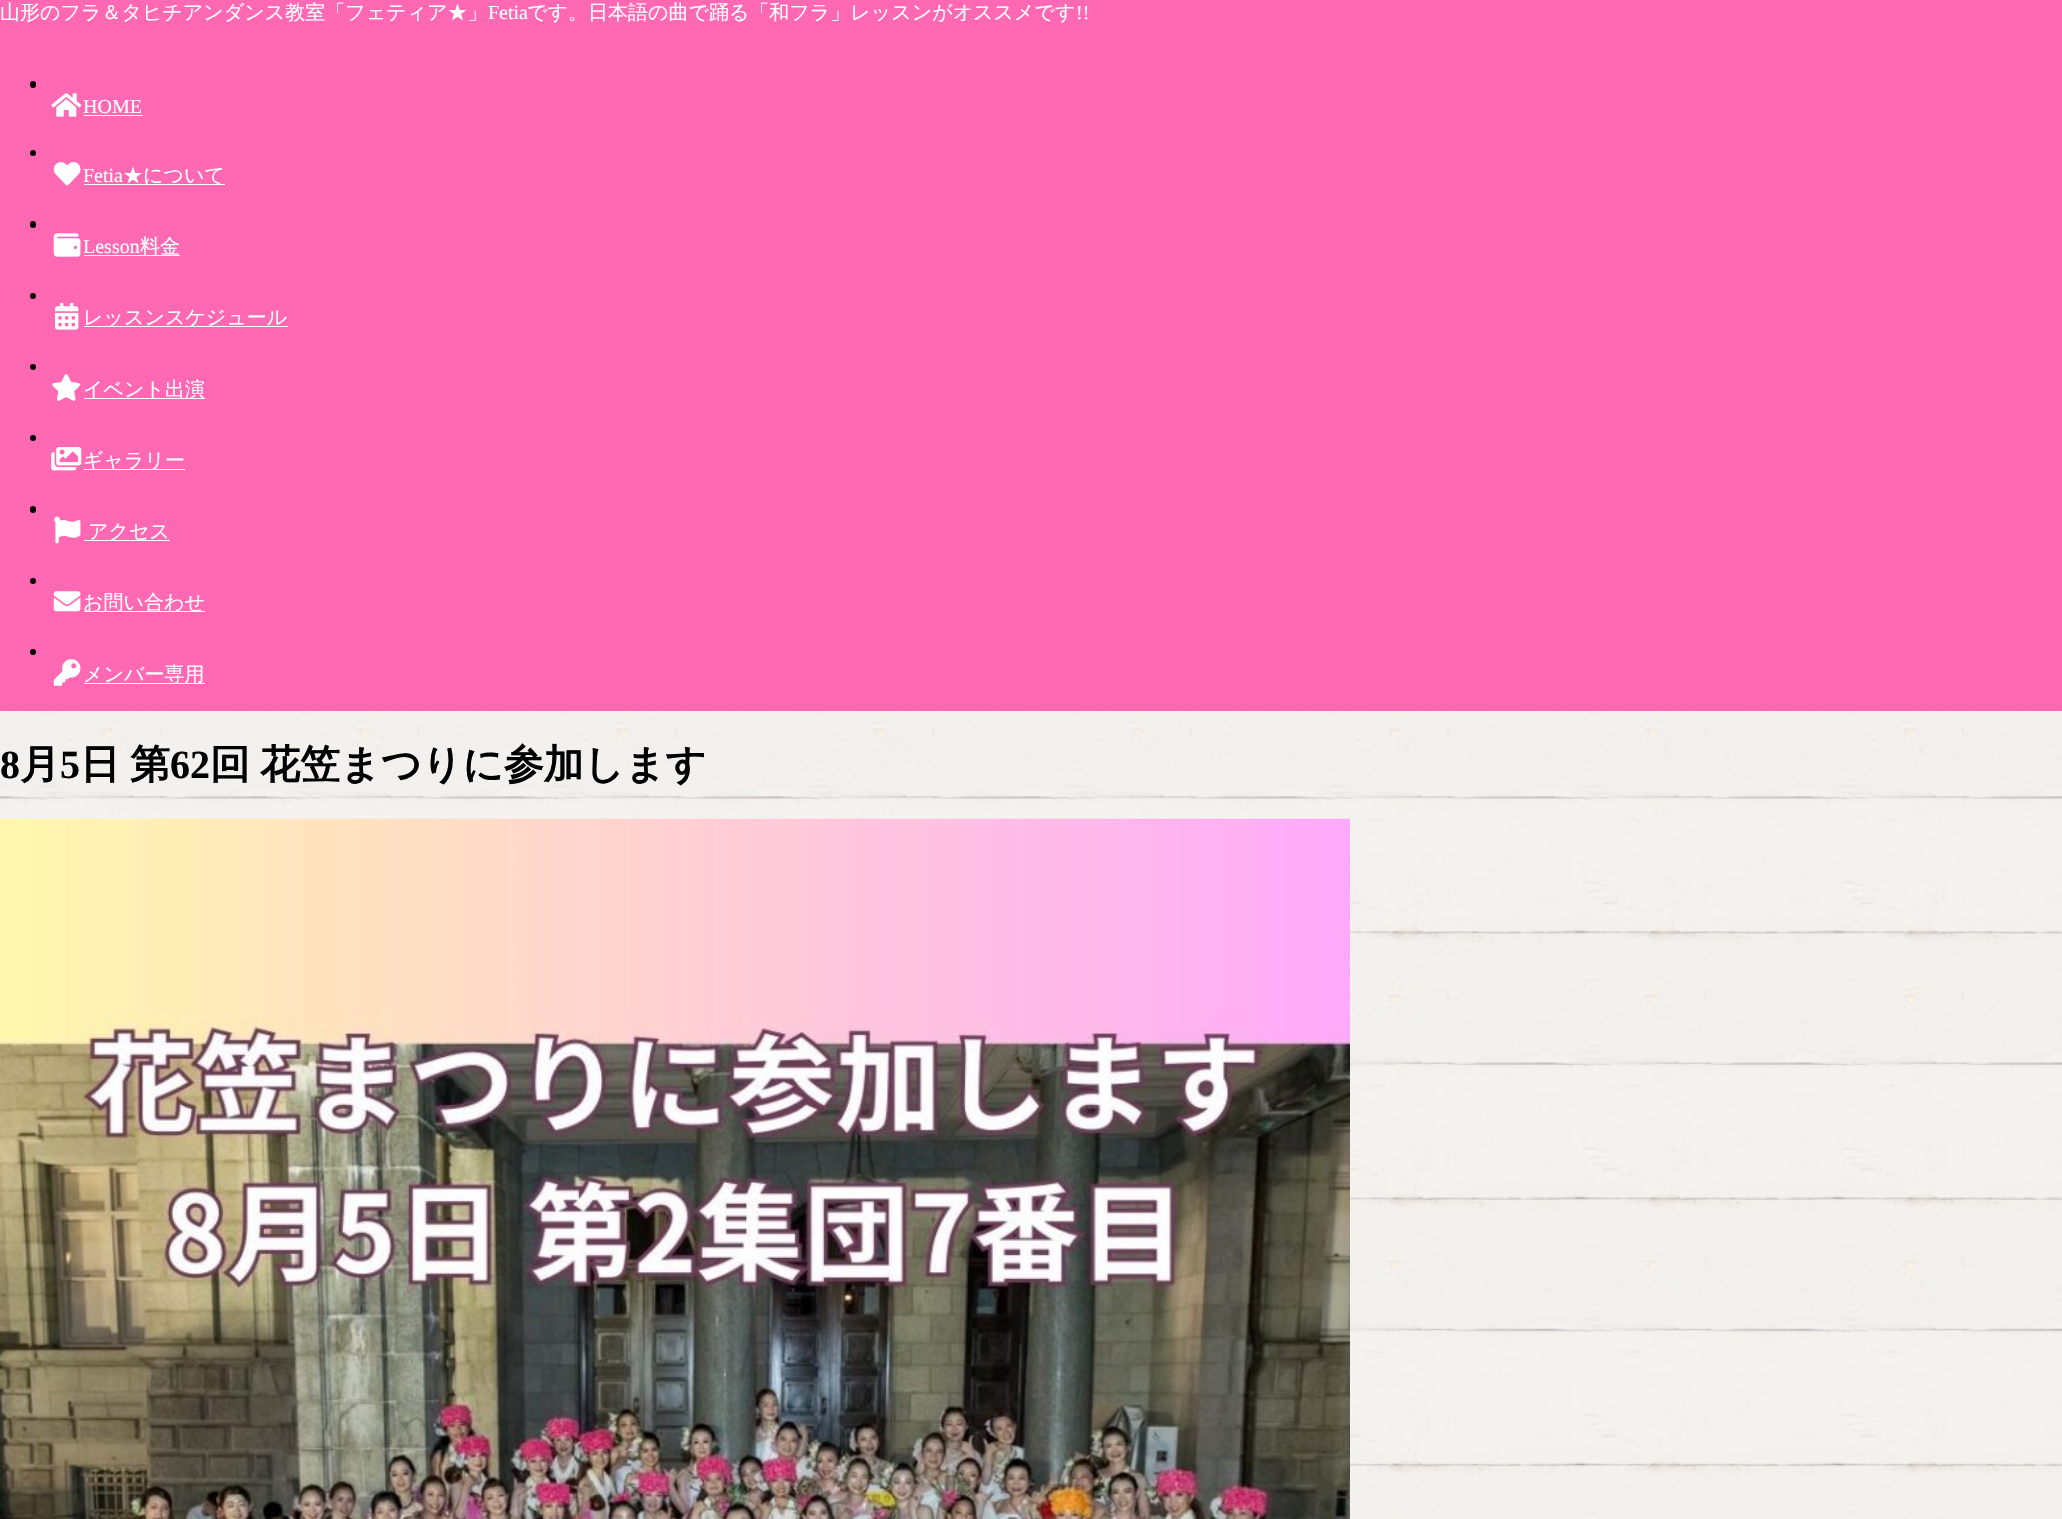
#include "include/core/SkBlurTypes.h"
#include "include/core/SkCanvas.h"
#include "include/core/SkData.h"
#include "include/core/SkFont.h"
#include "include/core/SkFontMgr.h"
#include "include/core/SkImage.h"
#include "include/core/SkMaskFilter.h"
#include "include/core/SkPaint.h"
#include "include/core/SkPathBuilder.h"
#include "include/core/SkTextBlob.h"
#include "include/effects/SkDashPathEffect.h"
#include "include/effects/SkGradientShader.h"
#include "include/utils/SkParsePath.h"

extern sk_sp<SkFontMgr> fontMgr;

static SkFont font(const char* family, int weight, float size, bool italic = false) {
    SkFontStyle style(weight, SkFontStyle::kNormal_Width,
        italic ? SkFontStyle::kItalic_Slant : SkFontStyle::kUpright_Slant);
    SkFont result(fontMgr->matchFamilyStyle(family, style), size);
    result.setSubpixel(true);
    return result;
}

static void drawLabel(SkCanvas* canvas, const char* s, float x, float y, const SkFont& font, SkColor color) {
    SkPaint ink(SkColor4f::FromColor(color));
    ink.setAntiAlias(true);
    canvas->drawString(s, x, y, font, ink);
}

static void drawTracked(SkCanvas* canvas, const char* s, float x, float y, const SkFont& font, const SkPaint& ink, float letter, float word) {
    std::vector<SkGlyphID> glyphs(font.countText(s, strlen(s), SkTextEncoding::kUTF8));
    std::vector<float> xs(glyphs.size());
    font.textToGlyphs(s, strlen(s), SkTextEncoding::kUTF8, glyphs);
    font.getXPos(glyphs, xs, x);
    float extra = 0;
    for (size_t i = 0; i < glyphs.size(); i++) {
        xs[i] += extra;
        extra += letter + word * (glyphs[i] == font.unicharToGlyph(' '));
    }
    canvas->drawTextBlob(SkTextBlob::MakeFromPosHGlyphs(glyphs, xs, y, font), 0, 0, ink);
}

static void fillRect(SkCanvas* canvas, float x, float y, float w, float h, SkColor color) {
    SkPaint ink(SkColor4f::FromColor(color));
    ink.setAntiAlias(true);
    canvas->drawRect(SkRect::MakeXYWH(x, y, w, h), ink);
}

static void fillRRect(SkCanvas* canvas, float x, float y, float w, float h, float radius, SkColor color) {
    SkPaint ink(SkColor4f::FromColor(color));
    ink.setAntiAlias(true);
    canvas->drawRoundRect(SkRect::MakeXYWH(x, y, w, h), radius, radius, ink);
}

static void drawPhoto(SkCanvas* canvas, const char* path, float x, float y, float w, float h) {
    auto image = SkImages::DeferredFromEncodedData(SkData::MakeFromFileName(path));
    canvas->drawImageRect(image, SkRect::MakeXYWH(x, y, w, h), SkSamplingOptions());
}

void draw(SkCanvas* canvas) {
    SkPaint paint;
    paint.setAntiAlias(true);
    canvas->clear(0xFFFFFFFF);
    drawPhoto(canvas, "assets/img1.png", 0, 711, 2062, 808);
    fillRect(canvas, 0, 0, 2062, 711, 0xFFFF69B4);
    SkFont font1 = font("WenQuanYi Zen Hei", 500, 20);
    drawLabel(canvas, "山形のフラ＆タヒチアンダンス教室「フェティア★」", 0, 19, font1, 0xFFFFFFFF);
    SkFont font2 = font("Liberation Serif", 400, 20);
    drawLabel(canvas, "Fetia", 488, 19, font2, 0xFFFFFFFF);
    drawLabel(canvas, "です。日本語の曲で踊る「和フラ」レッスンがオススメです", 527, 19, font1, 0xFFFFFFFF);
    drawLabel(canvas, "!!", 1076, 19, font2, 0xFFFFFFFF);
    fillRRect(canvas, 30, 81, 6, 7, 3, 0xFF000000);
    drawPhoto(canvas, "assets/img2.png", 51, 93, 31, 24);
    drawLabel(canvas, "HOME", 83, 113, font2, 0xFFFFFFFF);
    fillRect(canvas, 84, 115, 59, 1, 0xFFFFFFFF);
    paint.setColor(0xFF000000);
    canvas->drawCircle(33, 153, 3, paint);
    drawPhoto(canvas, "assets/img3.png", 53, 162, 28, 24);
    drawLabel(canvas, "Fetia", 83, 182, font2, 0xFFFFFFFF);
    fillRect(canvas, 84, 184, 141, 1, 0xFFFFFFFF);
    drawLabel(canvas, "★について", 123, 182, font1, 0xFFFFFFFF);
    fillRRect(canvas, 30, 221, 6, 7, 3, 0xFF000000);
    drawPhoto(canvas, "assets/img4.png", 53, 233, 28, 24);
    drawLabel(canvas, "Lesson", 83, 253, font2, 0xFFFFFFFF);
    fillRect(canvas, 84, 255, 96, 1, 0xFFFFFFFF);
    drawLabel(canvas, "料金", 140, 253, font1, 0xFFFFFFFF);
    canvas->drawCircle(33, 296, 3, paint);
    drawPhoto(canvas, "assets/img5.png", 55, 302, 24, 28);
    fillRect(canvas, 84, 326, 204, 1, 0xFFFFFFFF);
    drawLabel(canvas, "レッスンスケジュール", 83, 324, font1, 0xFFFFFFFF);
    canvas->drawCircle(33, 367, 3, paint);
    drawPhoto(canvas, "assets/img6.png", 52, 374, 29, 27);
    fillRect(canvas, 84, 398, 121, 1, 0xFFFFFFFF);
    drawLabel(canvas, "イベント出演", 83, 396, font1, 0xFFFFFFFF);
    canvas->drawCircle(33, 438, 3, paint);
    drawPhoto(canvas, "assets/img7.png", 51, 447, 31, 24);
    fillRect(canvas, 84, 469, 101, 1, 0xFFFFFFFF);
    drawLabel(canvas, "ギャラリー", 83, 467, font1, 0xFFFFFFFF);
    fillRRect(canvas, 30, 506, 6, 7, 3, 0xFF000000);
    drawPhoto(canvas, "assets/img8.png", 54, 516, 27, 28);
    fillRect(canvas, 84, 540, 86, 1, 0xFFFFFFFF);
    drawLabel(canvas, "アクセス", 88, 538, font1, 0xFFFFFFFF);
    canvas->drawCircle(33, 581, 3, paint);
    drawPhoto(canvas, "assets/img9.png", 53, 591, 28, 21);
    fillRect(canvas, 84, 611, 121, 1, 0xFFFFFFFF);
    drawLabel(canvas, "お問い合わせ", 83, 609, font1, 0xFFFFFFFF);
    canvas->drawCircle(33, 652, 3, paint);
    drawPhoto(canvas, "assets/img10.png", 53, 659, 28, 27);
    fillRect(canvas, 84, 683, 121, 1, 0xFFFFFFFF);
    drawLabel(canvas, "メンバー専用", 83, 681, font1, 0xFFFFFFFF);
    SkFont font3 = font("Liberation Serif", 700, 40);
    drawLabel(canvas, "8", 0, 778, font3, 0xFF000000);
    SkFont font4 = font("WenQuanYi Zen Hei", 700, 40);
    drawLabel(canvas, "月", 20, 778, font4, 0xFF000000);
    drawLabel(canvas, "5", 60, 778, font3, 0xFF000000);
    drawTracked(canvas, "日 第", 80, 778, font4, paint, 0, -2);
    drawLabel(canvas, "62", 170, 778, font3, 0xFF000000);
    drawTracked(canvas, "回 花笠まつりに参加します", 210, 778, font4, paint, 0, -2);
    drawPhoto(canvas, "assets/img11.png", 0, 818, 1350, 701);
}
